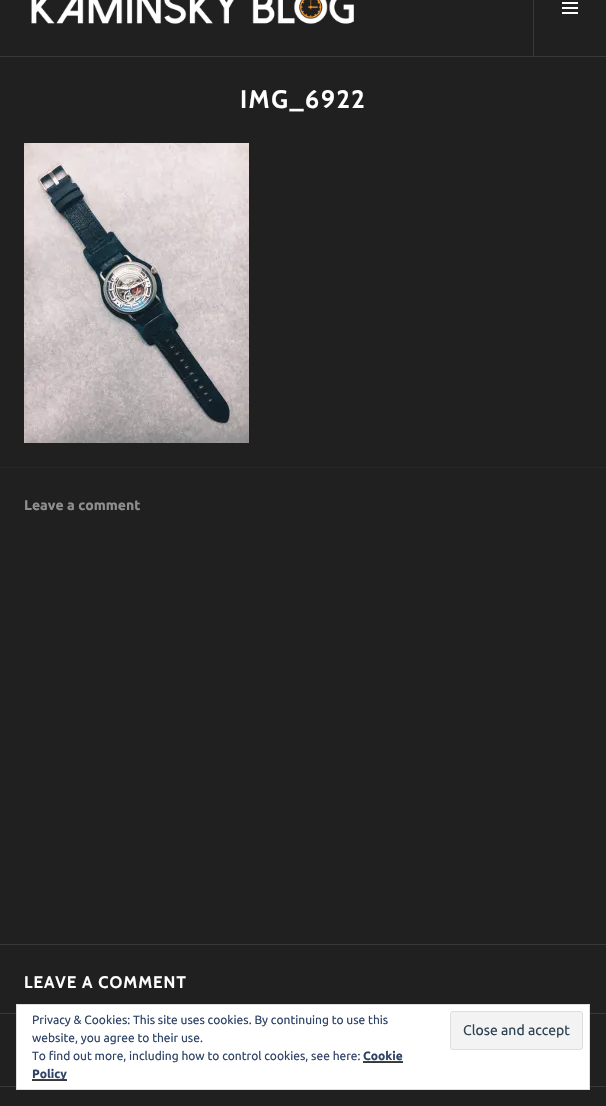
#include "include/core/SkBlurTypes.h"
#include "include/core/SkCanvas.h"
#include "include/core/SkData.h"
#include "include/core/SkFont.h"
#include "include/core/SkFontMgr.h"
#include "include/core/SkImage.h"
#include "include/core/SkMaskFilter.h"
#include "include/core/SkPaint.h"
#include "include/core/SkPathBuilder.h"
#include "include/core/SkTextBlob.h"
#include "include/effects/SkDashPathEffect.h"
#include "include/effects/SkGradientShader.h"
#include "include/utils/SkParsePath.h"

extern sk_sp<SkFontMgr> fontMgr;

static SkFont font(const char* family, int weight, float size, bool italic = false) {
    SkFontStyle style(weight, SkFontStyle::kNormal_Width,
        italic ? SkFontStyle::kItalic_Slant : SkFontStyle::kUpright_Slant);
    SkFont result(fontMgr->matchFamilyStyle(family, style), size);
    result.setSubpixel(true);
    return result;
}

static void drawLabel(SkCanvas* canvas, const char* s, float x, float y, const SkFont& font, SkColor color) {
    SkPaint ink(SkColor4f::FromColor(color));
    ink.setAntiAlias(true);
    canvas->drawString(s, x, y, font, ink);
}

static void drawTracked(SkCanvas* canvas, const char* s, float x, float y, const SkFont& font, const SkPaint& ink, float letter, float word) {
    std::vector<SkGlyphID> glyphs(font.countText(s, strlen(s), SkTextEncoding::kUTF8));
    std::vector<float> xs(glyphs.size());
    font.textToGlyphs(s, strlen(s), SkTextEncoding::kUTF8, glyphs);
    font.getXPos(glyphs, xs, x);
    float extra = 0;
    for (size_t i = 0; i < glyphs.size(); i++) {
        xs[i] += extra;
        extra += letter + word * (glyphs[i] == font.unicharToGlyph(' '));
    }
    canvas->drawTextBlob(SkTextBlob::MakeFromPosHGlyphs(glyphs, xs, y, font), 0, 0, ink);
}

static void fillRect(SkCanvas* canvas, float x, float y, float w, float h, SkColor color) {
    SkPaint ink(SkColor4f::FromColor(color));
    ink.setAntiAlias(true);
    canvas->drawRect(SkRect::MakeXYWH(x, y, w, h), ink);
}

static void drawPhoto(SkCanvas* canvas, const char* path, float x, float y, float w, float h) {
    auto image = SkImages::DeferredFromEncodedData(SkData::MakeFromFileName(path));
    canvas->drawImageRect(image, SkRect::MakeXYWH(x, y, w, h), SkSamplingOptions());
}

void draw(SkCanvas* canvas) {
    SkPaint paint;
    paint.setAntiAlias(true);
    canvas->clear(0xFF202020);
    fillRect(canvas, 0, 56, 606, 1, 0xFF383838);
    drawPhoto(canvas, "assets/img1.png", 31, 0, 323, 24);
    fillRect(canvas, 533, 0, 1, 56, 0xFF383838);
    drawPhoto(canvas, "assets/img2.png", 562, 2, 16, 12);
    SkFont font1 = font("Cabin", 700, 25.25f);
    paint.setColor(0xFFFFFFFF);
    drawTracked(canvas, "IMG_6922", 240, 108, font1, paint, 1.5f, 0);
    drawPhoto(canvas, "assets/img3.png", 24, 143, 225, 300);
    fillRect(canvas, 0, 467, 606, 1, 0xFF282828);
    SkFont font2 = font("Ubuntu", 700, 14);
    drawLabel(canvas, "Leave a comment", 24, 510, font2, 0xFF8E8E8E);
    fillRect(canvas, 0, 944, 606, 1, 0xFF383838);
    SkFont font3 = font("Cabin", 700, 16.75f);
    drawTracked(canvas, "LEAVE A COMMENT", 24, 988, font3, paint, 1, 0);
    fillRect(canvas, 0, 1013, 606, 1, 0xFF383838);
    fillRect(canvas, 0, 1086, 606, 1, 0xFF383838);
    canvas->drawRect(SkRect::MakeXYWH(16.5f, 1004.5f, 573, 85), paint);
    paint.setStroke(true);
    paint.setStrokeWidth(1);
    paint.setColor(0xFFDEDEDE);
    canvas->drawRect(SkRect::MakeXYWH(16.5f, 1004.5f, 573, 85), paint);
    SkFont font4 = font("Ubuntu", 400, 12);
    drawLabel(canvas, "Privacy & Cookies: This site uses cookies. By continuing to use this", 32, 1024, font4, 0xFF2E4467);
    drawLabel(canvas, "website, you agree to their use.", 32, 1042, font4, 0xFF2E4467);
    paint.setStroke(false);
    paint.setColor(0xFFF3F3F3);
    canvas->drawRoundRect(SkRect::MakeXYWH(450.5f, 1011.5f, 132, 38), 2.5f, 2.5f, paint);
    paint.setStroke(true);
    paint.setColor(0xFFDEDEDE);
    canvas->drawRoundRect(SkRect::MakeXYWH(450.5f, 1011.5f, 132, 38), 2.5f, 2.5f, paint);
    SkFont font5 = font("Ubuntu", 400, 14);
    drawLabel(canvas, "Close and accept", 463, 1035, font5, 0xFF2E4453);
    drawLabel(canvas, "To find out more, including how to control cookies, see here:", 32, 1060, font4, 0xFF2E4467);
    SkFont font6 = font("Ubuntu", 700, 12);
    drawLabel(canvas, "Cookie", 363, 1060, font6, 0xFF2E4467);
    fillRect(canvas, 363, 1062, 40, 1, 0xFF383838);
    fillRect(canvas, 363, 1061, 40, 1, 0xFF2E4467);
    fillRect(canvas, 32, 1080, 35, 1, 0xFF383838);
    fillRect(canvas, 32, 1079, 35, 1, 0xFF2E4467);
    drawLabel(canvas, "Policy", 32, 1078, font6, 0xFF2E4467);
}
